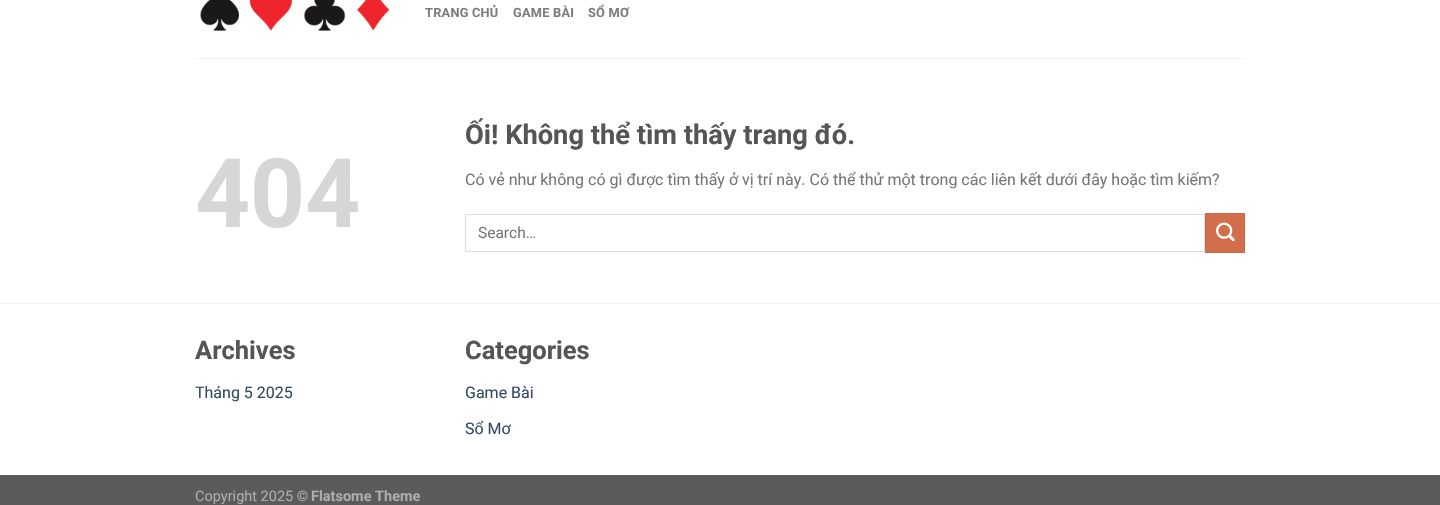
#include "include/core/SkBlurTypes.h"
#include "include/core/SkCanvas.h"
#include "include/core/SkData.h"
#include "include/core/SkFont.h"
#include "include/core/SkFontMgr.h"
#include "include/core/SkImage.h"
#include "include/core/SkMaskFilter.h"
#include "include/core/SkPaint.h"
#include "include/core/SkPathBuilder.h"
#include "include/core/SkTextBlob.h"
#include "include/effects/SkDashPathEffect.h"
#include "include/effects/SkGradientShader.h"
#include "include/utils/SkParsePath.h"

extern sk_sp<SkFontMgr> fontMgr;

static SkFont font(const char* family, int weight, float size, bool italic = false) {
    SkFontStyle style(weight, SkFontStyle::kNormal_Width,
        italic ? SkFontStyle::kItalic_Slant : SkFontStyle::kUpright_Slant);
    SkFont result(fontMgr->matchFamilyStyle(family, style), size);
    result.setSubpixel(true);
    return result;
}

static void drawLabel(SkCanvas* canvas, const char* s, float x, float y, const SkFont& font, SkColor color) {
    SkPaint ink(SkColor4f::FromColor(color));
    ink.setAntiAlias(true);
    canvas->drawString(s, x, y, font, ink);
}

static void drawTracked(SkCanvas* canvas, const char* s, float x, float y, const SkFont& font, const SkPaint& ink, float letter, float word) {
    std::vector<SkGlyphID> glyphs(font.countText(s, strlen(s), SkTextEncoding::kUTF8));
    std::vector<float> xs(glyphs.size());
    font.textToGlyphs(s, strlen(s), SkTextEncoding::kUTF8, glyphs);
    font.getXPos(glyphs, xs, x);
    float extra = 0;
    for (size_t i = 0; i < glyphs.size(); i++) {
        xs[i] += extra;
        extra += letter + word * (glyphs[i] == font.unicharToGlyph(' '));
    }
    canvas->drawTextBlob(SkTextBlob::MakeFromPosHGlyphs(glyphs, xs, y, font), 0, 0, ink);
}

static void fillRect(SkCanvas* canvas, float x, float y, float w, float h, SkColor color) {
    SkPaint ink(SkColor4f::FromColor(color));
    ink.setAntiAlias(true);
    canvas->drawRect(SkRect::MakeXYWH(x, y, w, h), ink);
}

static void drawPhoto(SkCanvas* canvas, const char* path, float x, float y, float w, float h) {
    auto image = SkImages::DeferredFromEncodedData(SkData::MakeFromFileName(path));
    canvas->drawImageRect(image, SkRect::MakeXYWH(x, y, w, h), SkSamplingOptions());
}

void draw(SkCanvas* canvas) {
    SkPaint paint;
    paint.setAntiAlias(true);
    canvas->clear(0xFFFFFFFF);
    drawPhoto(canvas, "assets/img1.png", 200, 0, 190, 31);
    SkFont font1 = font("Roboto", 700, 12.75f);
    paint.setColor(0xFF7D7D7D);
    drawTracked(canvas, "TRANG CHỦ", 425, 17, font1, paint, 0.25f, 0);
    drawTracked(canvas, "GAME BÀI", 513, 17, font1, paint, 0.25f, 0);
    drawTracked(canvas, "SỔ MƠ", 588, 17, font1, paint, 0.25f, 0);
    fillRect(canvas, 195, 58, 1050, 1, 0xFFF1F1F1);
    SkFont font2 = font("Roboto", 700, 96);
    drawLabel(canvas, "404", 195, 227, font2, 0xFFD6D6D6);
    SkFont font3 = font("Roboto", 700, 27.25f);
    drawLabel(canvas, "Ối! Không thể tìm thấy trang đó.", 465, 144, font3, 0xFF555555);
    SkFont font4 = font("Roboto", 400, 16);
    drawLabel(canvas, "Có vẻ như không có gì được tìm thấy ở vị trí này. Có thể thử một trong các liên kết dưới đây hoặc tìm kiếm?", 465, 185, font4, 0xFF777777);
    paint.setStroke(true);
    paint.setStrokeWidth(1);
    paint.setColor(0xFFDDDDDD);
    canvas->drawRect(SkRect::MakeXYWH(465.5f, 214.5f, 739, 37), paint);
    SkFont font5 = font("Roboto", 400, 15.5f);
    drawLabel(canvas, "Search…", 478, 238, font5, 0xFF777777);
    paint.setStroke(false);
    paint.setColor(0xFFD26E4B);
    canvas->drawRect(SkRect::MakeXYWH(1205.5f, 213.5f, 39, 39), paint);
    paint.setStroke(true);
    paint.setColor(0xFFC86947);
    canvas->drawRect(SkRect::MakeXYWH(1205.5f, 213.5f, 39, 39), paint);
    drawPhoto(canvas, "assets/img2.png", 1216, 222, 19, 20);
    fillRect(canvas, 0, 303, 1440, 1, 0xFFF2F2F2);
    SkFont font6 = font("Roboto", 700, 25.5f);
    drawLabel(canvas, "Archives", 195, 359, font6, 0xFF555555);
    drawLabel(canvas, "Tháng 5 2025", 195, 398, font4, 0xFF334862);
    drawLabel(canvas, "Categories", 465, 359, font6, 0xFF555555);
    drawLabel(canvas, "Game Bài", 465, 398, font4, 0xFF334862);
    drawLabel(canvas, "Sổ Mơ", 465, 434, font4, 0xFF334862);
    fillRect(canvas, 0, 475, 1440, 30, 0xFF5B5B5B);
    SkFont font7 = font("Roboto", 400, 14.5f);
    drawLabel(canvas, "Copyright 2025 ©", 195, 501, font7, 0xFFADADAD);
    SkFont font8 = font("Roboto", 700, 14.5f);
    drawLabel(canvas, "Flatsome Theme", 311, 501, font8, 0xFFADADAD);
}
